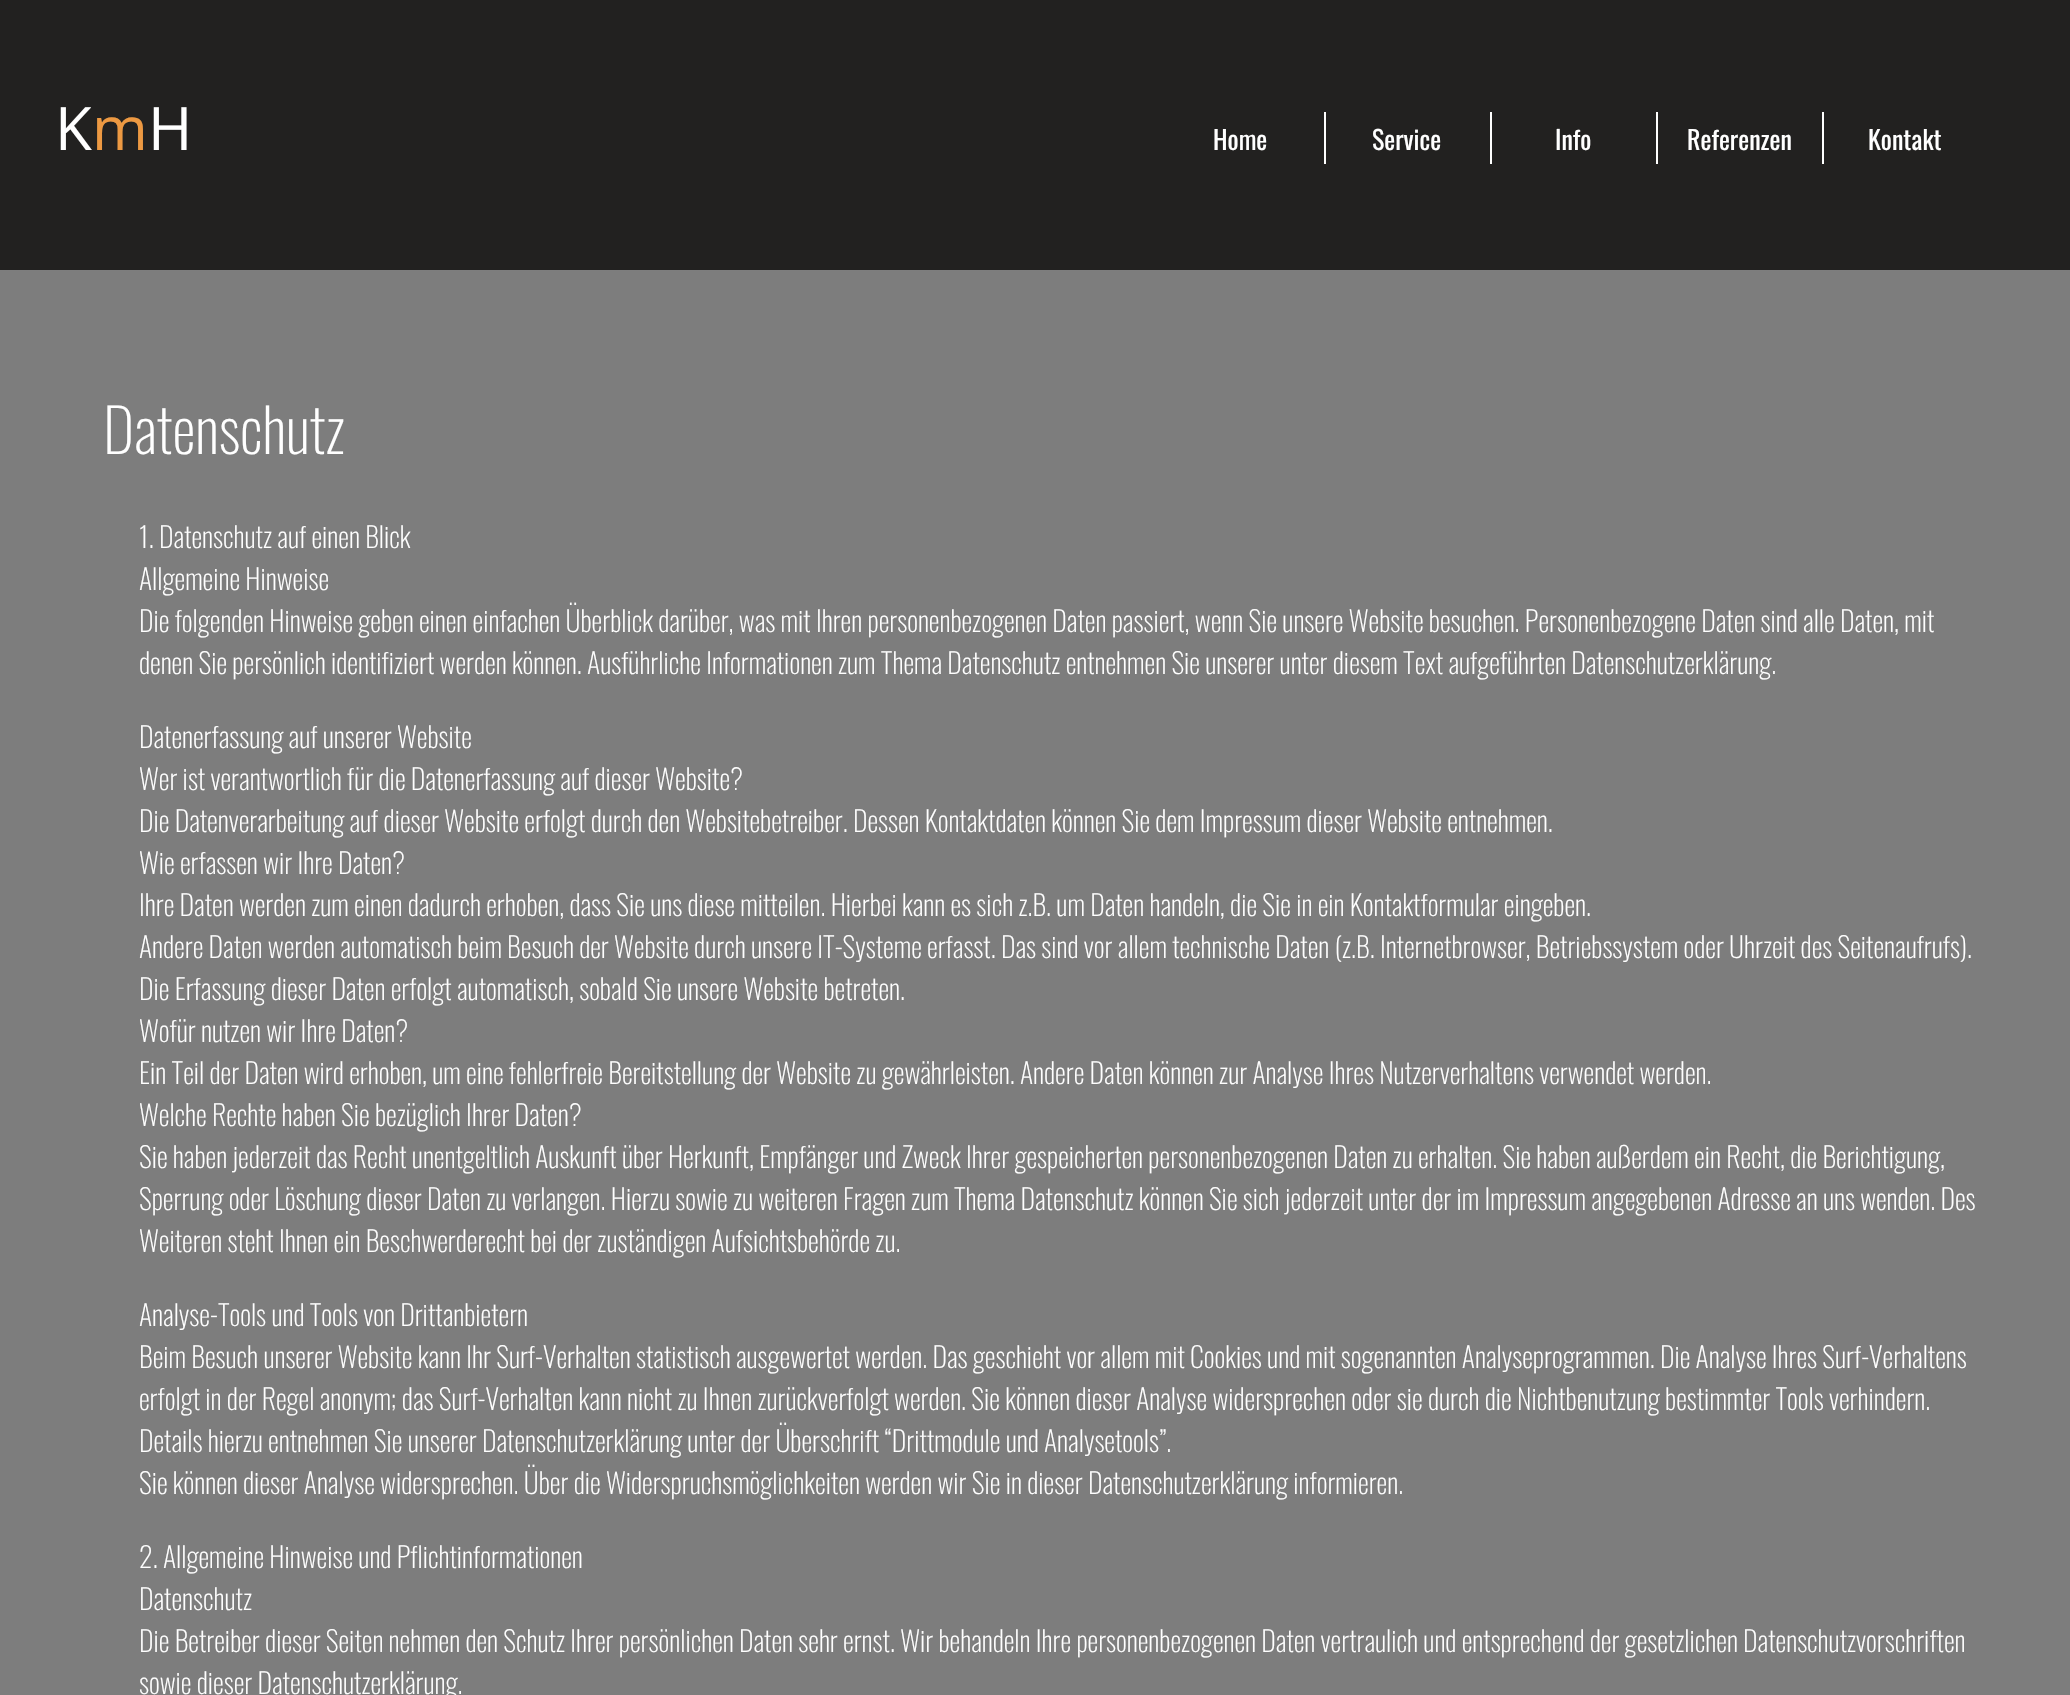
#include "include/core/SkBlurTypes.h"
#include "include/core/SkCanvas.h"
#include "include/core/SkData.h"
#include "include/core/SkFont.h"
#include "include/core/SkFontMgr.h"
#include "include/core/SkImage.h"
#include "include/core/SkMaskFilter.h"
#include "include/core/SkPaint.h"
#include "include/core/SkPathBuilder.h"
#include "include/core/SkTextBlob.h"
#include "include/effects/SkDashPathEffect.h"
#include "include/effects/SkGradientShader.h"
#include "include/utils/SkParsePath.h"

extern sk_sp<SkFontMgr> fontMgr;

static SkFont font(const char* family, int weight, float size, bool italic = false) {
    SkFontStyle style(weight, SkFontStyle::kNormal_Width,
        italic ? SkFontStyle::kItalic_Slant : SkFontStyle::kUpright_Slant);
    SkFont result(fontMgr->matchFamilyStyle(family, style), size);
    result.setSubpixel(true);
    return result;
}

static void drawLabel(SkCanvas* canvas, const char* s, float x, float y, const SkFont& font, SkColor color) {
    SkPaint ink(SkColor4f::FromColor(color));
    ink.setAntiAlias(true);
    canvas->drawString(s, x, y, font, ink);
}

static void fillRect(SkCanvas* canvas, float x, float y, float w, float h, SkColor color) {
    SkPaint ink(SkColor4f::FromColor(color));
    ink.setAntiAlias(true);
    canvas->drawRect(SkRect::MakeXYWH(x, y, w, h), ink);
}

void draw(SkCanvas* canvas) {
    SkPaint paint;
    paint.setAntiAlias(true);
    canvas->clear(0xFF7D7D7D);
    fillRect(canvas, 0, 0, 2070, 270, 0xFF222120);
    SkFont font1 = font("Open Sans", 400, 60);
    drawLabel(canvas, "K", 55, 150, font1, 0xFFFFFFFF);
    drawLabel(canvas, "m", 92, 150, font1, 0xFFED9942);
    drawLabel(canvas, "H", 148, 150, font1, 0xFFFFFFFF);
    SkFont font2 = font("Oswald", 400, 26);
    drawLabel(canvas, "Home", 1213, 150, font2, 0xFFFFFFFF);
    fillRect(canvas, 1324, 112, 2, 52, 0xFFFFFFFF);
    drawLabel(canvas, "Service", 1372, 150, font2, 0xFFFFFFFF);
    fillRect(canvas, 1490, 112, 2, 52, 0xFFFFFFFF);
    drawLabel(canvas, "Info", 1555, 150, font2, 0xFFFFFFFF);
    fillRect(canvas, 1656, 112, 2, 52, 0xFFFFFFFF);
    drawLabel(canvas, "Referenzen", 1687, 150, font2, 0xFFFFFFFF);
    fillRect(canvas, 1822, 112, 2, 52, 0xFFFFFFFF);
    drawLabel(canvas, "Kontakt", 1868, 150, font2, 0xFFFFFFFF);
    SkFont font3 = font("Oswald", 200, 60);
    drawLabel(canvas, "Datenschutz", 103, 454, font3, 0xFFFFFFFF);
    SkFont font4 = font("Oswald", 200, 28);
    drawLabel(canvas, "1. Datenschutz auf einen Blick", 139, 548, font4, 0xFFFFFFFF);
    drawLabel(canvas, "Allgemeine Hinweise", 139, 590, font4, 0xFFFFFFFF);
    drawLabel(canvas, "Die folgenden Hinweise geben einen einfachen Überblick darüber, was mit Ihren personenbezogenen Daten passiert, wenn Sie unsere Website besuchen. Personenbezogene Daten sind alle Daten, mit", 139, 632, font4, 0xFFFFFFFF);
    drawLabel(canvas, "denen Sie persönlich identifiziert werden können. Ausführliche Informationen zum Thema Datenschutz entnehmen Sie unserer unter diesem Text aufgeführten Datenschutzerklärung.", 139, 674, font4, 0xFFFFFFFF);
    drawLabel(canvas, "Datenerfassung auf unserer Website", 139, 748, font4, 0xFFFFFFFF);
    drawLabel(canvas, "Wer ist verantwortlich für die Datenerfassung auf dieser Website?", 139, 790, font4, 0xFFFFFFFF);
    drawLabel(canvas, "Die Datenverarbeitung auf dieser Website erfolgt durch den Websitebetreiber. Dessen Kontaktdaten können Sie dem Impressum dieser Website entnehmen.", 139, 832, font4, 0xFFFFFFFF);
    drawLabel(canvas, "Wie erfassen wir Ihre Daten?", 139, 874, font4, 0xFFFFFFFF);
    drawLabel(canvas, "Ihre Daten werden zum einen dadurch erhoben, dass Sie uns diese mitteilen. Hierbei kann es sich z.B. um Daten handeln, die Sie in ein Kontaktformular eingeben.", 139, 916, font4, 0xFFFFFFFF);
    drawLabel(canvas, "Andere Daten werden automatisch beim Besuch der Website durch unsere IT-Systeme erfasst. Das sind vor allem technische Daten (z.B. Internetbrowser, Betriebssystem oder Uhrzeit des Seitenaufrufs).", 139, 958, font4, 0xFFFFFFFF);
    drawLabel(canvas, "Die Erfassung dieser Daten erfolgt automatisch, sobald Sie unsere Website betreten.", 139, 1000, font4, 0xFFFFFFFF);
    drawLabel(canvas, "Wofür nutzen wir Ihre Daten?", 139, 1042, font4, 0xFFFFFFFF);
    drawLabel(canvas, "Ein Teil der Daten wird erhoben, um eine fehlerfreie Bereitstellung der Website zu gewährleisten. Andere Daten können zur Analyse Ihres Nutzerverhaltens verwendet werden.", 139, 1084, font4, 0xFFFFFFFF);
    drawLabel(canvas, "Welche Rechte haben Sie bezüglich Ihrer Daten?", 139, 1126, font4, 0xFFFFFFFF);
    drawLabel(canvas, "Sie haben jederzeit das Recht unentgeltlich Auskunft über Herkunft, Empfänger und Zweck Ihrer gespeicherten personenbezogenen Daten zu erhalten. Sie haben außerdem ein Recht, die Berichtigung,", 139, 1168, font4, 0xFFFFFFFF);
    drawLabel(canvas, "Sperrung oder Löschung dieser Daten zu verlangen. Hierzu sowie zu weiteren Fragen zum Thema Datenschutz können Sie sich jederzeit unter der im Impressum angegebenen Adresse an uns wenden. Des", 139, 1210, font4, 0xFFFFFFFF);
    drawLabel(canvas, "Weiteren steht Ihnen ein Beschwerderecht bei der zuständigen Aufsichtsbehörde zu.", 139, 1252, font4, 0xFFFFFFFF);
    drawLabel(canvas, "Analyse-Tools und Tools von Drittanbietern", 139, 1326, font4, 0xFFFFFFFF);
    drawLabel(canvas, "Beim Besuch unserer Website kann Ihr Surf-Verhalten statistisch ausgewertet werden. Das geschieht vor allem mit Cookies und mit sogenannten Analyseprogrammen. Die Analyse Ihres Surf-Verhaltens", 139, 1368, font4, 0xFFFFFFFF);
    drawLabel(canvas, "erfolgt in der Regel anonym; das Surf-Verhalten kann nicht zu Ihnen zurückverfolgt werden. Sie können dieser Analyse widersprechen oder sie durch die Nichtbenutzung bestimmter Tools verhindern.", 139, 1410, font4, 0xFFFFFFFF);
    drawLabel(canvas, "Details hierzu entnehmen Sie unserer Datenschutzerklärung unter der Überschrift “Drittmodule und Analysetools”.", 139, 1452, font4, 0xFFFFFFFF);
    drawLabel(canvas, "Sie können dieser Analyse widersprechen. Über die Widerspruchsmöglichkeiten werden wir Sie in dieser Datenschutzerklärung informieren.", 139, 1494, font4, 0xFFFFFFFF);
    drawLabel(canvas, "2. Allgemeine Hinweise und Pflichtinformationen", 139, 1568, font4, 0xFFFFFFFF);
    drawLabel(canvas, "Datenschutz", 139, 1610, font4, 0xFFFFFFFF);
    drawLabel(canvas, "Die Betreiber dieser Seiten nehmen den Schutz Ihrer persönlichen Daten sehr ernst. Wir behandeln Ihre personenbezogenen Daten vertraulich und entsprechend der gesetzlichen Datenschutzvorschriften", 139, 1652, font4, 0xFFFFFFFF);
    drawLabel(canvas, "sowie dieser Datenschutzerklärung.", 139, 1694, font4, 0xFFFFFFFF);
}
